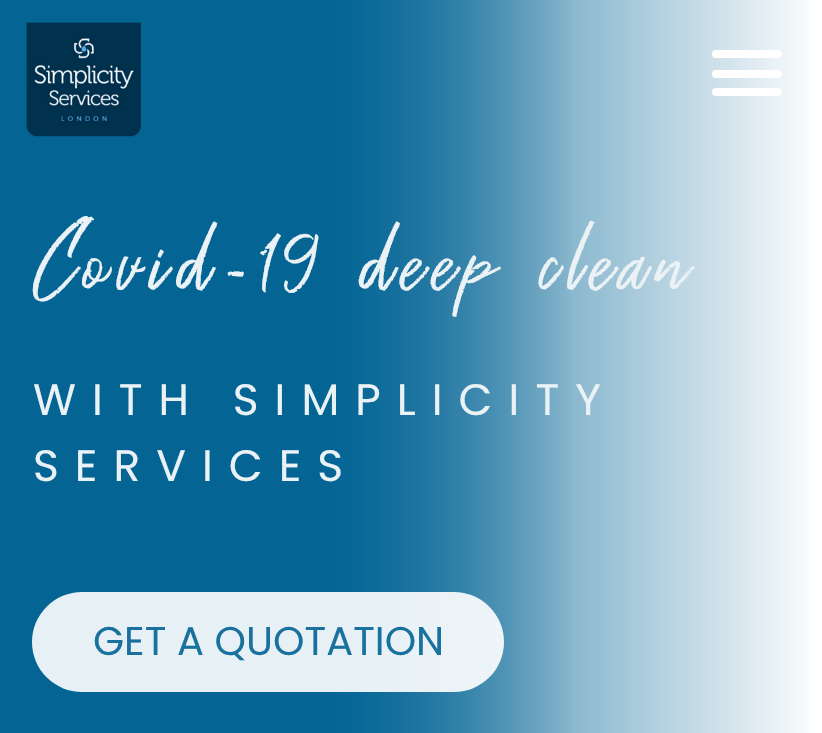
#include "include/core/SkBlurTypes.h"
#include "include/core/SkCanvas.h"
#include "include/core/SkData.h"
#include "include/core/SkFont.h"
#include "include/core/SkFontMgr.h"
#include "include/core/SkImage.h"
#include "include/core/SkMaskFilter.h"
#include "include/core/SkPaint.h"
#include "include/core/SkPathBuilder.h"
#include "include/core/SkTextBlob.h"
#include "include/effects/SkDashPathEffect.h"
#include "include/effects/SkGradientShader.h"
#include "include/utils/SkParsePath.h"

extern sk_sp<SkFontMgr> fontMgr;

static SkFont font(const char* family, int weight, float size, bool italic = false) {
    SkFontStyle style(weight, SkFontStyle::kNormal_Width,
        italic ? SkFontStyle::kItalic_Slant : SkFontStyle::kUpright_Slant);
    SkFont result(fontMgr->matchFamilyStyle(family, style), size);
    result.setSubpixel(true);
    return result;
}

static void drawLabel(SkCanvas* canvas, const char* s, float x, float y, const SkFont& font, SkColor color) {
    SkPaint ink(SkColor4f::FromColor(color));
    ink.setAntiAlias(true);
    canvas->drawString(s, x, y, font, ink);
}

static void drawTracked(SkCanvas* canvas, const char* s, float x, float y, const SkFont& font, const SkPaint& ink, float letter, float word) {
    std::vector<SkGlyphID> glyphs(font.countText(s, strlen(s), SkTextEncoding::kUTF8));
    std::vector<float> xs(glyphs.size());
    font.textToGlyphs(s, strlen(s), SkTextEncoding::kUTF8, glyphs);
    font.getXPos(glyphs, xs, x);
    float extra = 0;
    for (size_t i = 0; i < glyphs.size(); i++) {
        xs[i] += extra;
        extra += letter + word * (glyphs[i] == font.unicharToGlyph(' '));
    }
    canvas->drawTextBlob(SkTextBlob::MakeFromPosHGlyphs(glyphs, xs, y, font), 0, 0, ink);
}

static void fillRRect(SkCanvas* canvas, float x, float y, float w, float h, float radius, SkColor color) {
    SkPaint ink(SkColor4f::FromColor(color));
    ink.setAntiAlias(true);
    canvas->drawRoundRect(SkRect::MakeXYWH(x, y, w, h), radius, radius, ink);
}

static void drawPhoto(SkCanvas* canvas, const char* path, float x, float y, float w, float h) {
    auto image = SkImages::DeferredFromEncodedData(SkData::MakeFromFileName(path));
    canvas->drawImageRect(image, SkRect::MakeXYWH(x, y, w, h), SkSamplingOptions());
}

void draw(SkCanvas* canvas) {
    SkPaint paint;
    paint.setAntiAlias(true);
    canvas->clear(0xFFFFFFFF);
    {
        const SkColor colors[] = {0xFF1A739F, 0xFFFFFFFF};
        const float stops[] = {0.4f, 0.7f};
        const SkPoint ends[] = {{0, 500}, {822, 500}};
        paint.setShader(SkGradientShader::MakeLinear(ends, colors, stops, 2, SkTileMode::kClamp));
        paint.setAlpha(255);
    }
    canvas->drawRect(SkRect::MakeXYWH(0, 0, 573, 733), paint);
    {
        const SkColor colors[] = {0xE6016394, 0x00016394};
        const float stops[] = {0.4f, 1};
        const SkPoint ends[] = {{0, 500}, {822, 500}};
        paint.setShader(SkGradientShader::MakeLinear(ends, colors, stops, 2, SkTileMode::kClamp));
        paint.setAlpha(255);
    }
    canvas->drawRect(SkRect::MakeXYWH(0, 0, 810, 733), paint);
    drawPhoto(canvas, "assets/img1.png", 26, 22, 115, 115);
    fillRRect(canvas, 712, 50, 70, 8, 4, 0xFFFFFFFF);
    fillRRect(canvas, 712, 70, 70, 8, 4, 0xFFFFFFFF);
    fillRRect(canvas, 712, 88, 70, 8, 4, 0xFFFFFFFF);
    SkFont font1 = font("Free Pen", 400, 116);
    paint.setShader(nullptr);
    paint.setColor(0xFFEBF2F6);
    drawTracked(canvas, "Covid-19 deep clean", 33, 302, font1, paint, 10, 0);
    SkFont font2 = font("Poppins", 400, 44);
    drawTracked(canvas, "WITH SIMPLICITY", 33, 415, font2, paint, 16, 0);
    drawTracked(canvas, "SERVICES", 33, 481, font2, paint, 16, 0);
    fillRRect(canvas, 32, 592, 472, 100, 50, 0xE6FFFFFF);
    SkFont font3 = font("Poppins", 400, 40);
    drawLabel(canvas, "GET A QUOTATION", 93, 655, font3, 0xFF18719E);
}
